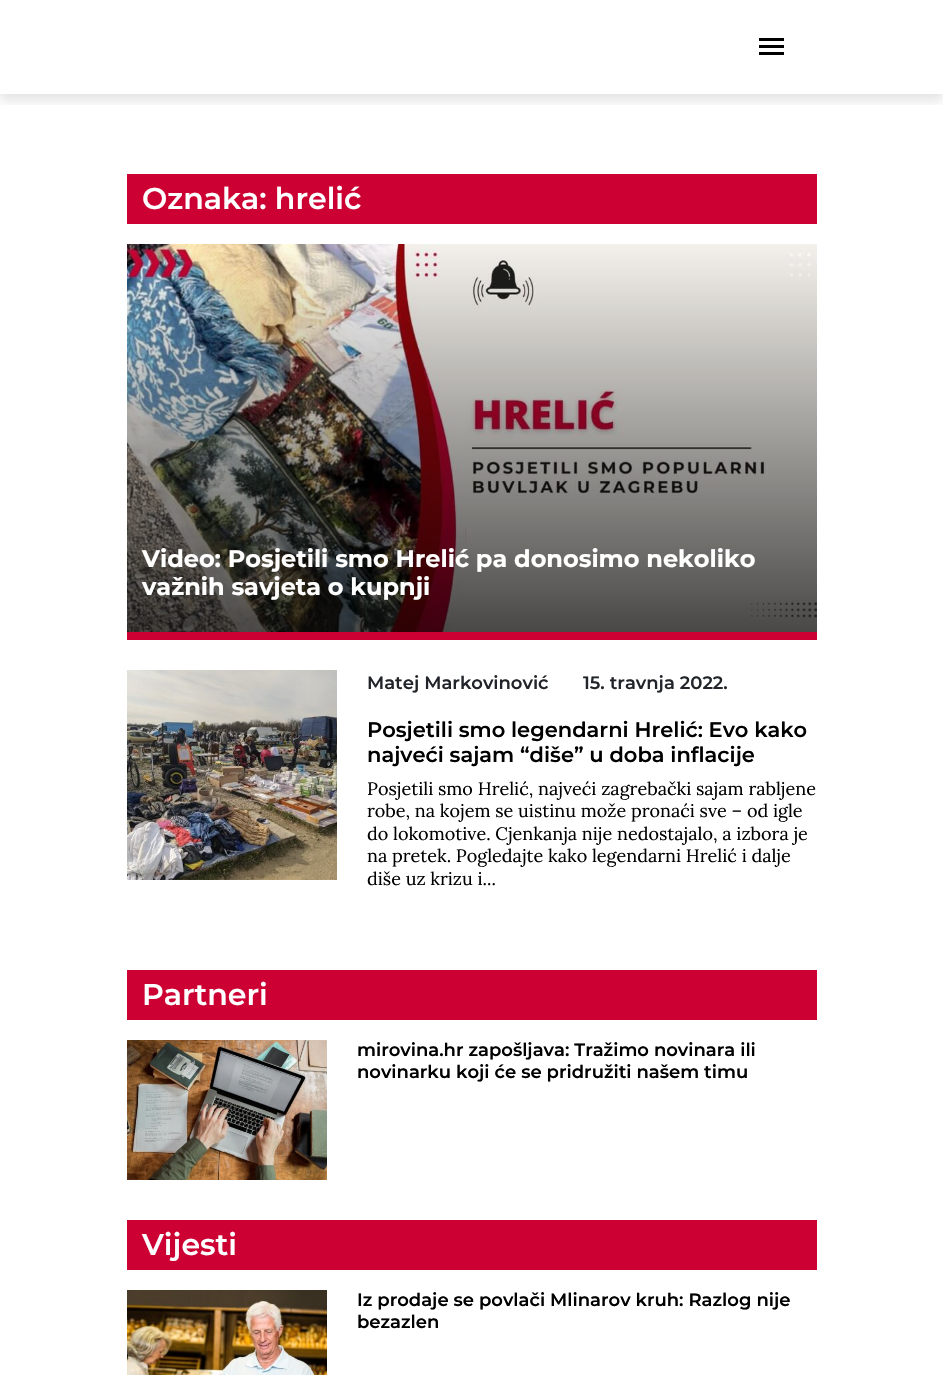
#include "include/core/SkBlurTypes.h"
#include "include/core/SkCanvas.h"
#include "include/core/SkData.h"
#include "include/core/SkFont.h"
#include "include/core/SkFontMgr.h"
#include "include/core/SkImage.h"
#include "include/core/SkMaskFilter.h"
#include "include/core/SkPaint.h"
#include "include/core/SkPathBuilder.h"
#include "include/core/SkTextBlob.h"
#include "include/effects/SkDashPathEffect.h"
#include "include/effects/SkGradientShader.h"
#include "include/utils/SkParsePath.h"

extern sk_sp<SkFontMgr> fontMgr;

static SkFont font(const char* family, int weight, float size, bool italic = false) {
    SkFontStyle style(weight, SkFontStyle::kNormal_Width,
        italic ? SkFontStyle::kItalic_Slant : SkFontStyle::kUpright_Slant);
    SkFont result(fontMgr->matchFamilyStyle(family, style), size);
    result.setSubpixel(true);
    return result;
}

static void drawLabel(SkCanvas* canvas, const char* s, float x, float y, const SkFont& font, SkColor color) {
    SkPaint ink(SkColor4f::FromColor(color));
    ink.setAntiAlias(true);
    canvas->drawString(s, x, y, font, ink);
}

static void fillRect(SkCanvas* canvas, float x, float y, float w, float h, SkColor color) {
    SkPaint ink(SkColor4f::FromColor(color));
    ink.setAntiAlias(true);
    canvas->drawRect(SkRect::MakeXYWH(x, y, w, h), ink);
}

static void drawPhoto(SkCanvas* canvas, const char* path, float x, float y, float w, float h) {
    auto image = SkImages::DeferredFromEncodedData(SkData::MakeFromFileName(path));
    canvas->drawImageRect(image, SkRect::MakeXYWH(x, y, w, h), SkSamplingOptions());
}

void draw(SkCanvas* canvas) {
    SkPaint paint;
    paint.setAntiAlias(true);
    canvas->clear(0xFFFFFFFF);
    canvas->save();
    canvas->clipRect(SkRect::MakeXYWH(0, 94, 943, 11));
    paint.setColor(0x1A000000);
    paint.setMaskFilter(SkMaskFilter::MakeBlur(kNormal_SkBlurStyle, 5));
    canvas->drawRect(SkRect::MakeXYWH(0, 7, 943, 94), paint);
    paint.setMaskFilter(nullptr);
    canvas->restore();
    fillRect(canvas, 759, 45, 25, 3, 0xFF000000);
    fillRect(canvas, 759, 38, 25, 3, 0xFF000000);
    fillRect(canvas, 759, 52, 25, 3, 0xFF000000);
    fillRect(canvas, 127, 174, 690, 50, 0xFFCC0033);
    SkFont font1 = font("Montserrat", 600, 30);
    drawLabel(canvas, "Oznaka: hrelić", 142, 209, font1, 0xFFFFFFFF);
    fillRect(canvas, 127, 632, 690, 8, 0xFFCC0033);
    drawPhoto(canvas, "assets/img1.png", 127, 244, 690, 388);
    SkFont font2 = font("Montserrat", 700, 24);
    drawLabel(canvas, "Video: Posjetili smo Hrelić pa donosimo nekoliko", 142, 567, font2, 0xFFFFFFFF);
    drawLabel(canvas, "važnih savjeta o kupnji", 142, 595, font2, 0xFFFFFFFF);
    drawPhoto(canvas, "assets/img2.png", 127, 670, 210, 210);
    SkFont font3 = font("Montserrat", 600, 18);
    drawLabel(canvas, "Matej Markovinović", 367, 689, font3, 0xFF212529);
    drawLabel(canvas, "15. travnja 2022.", 583, 689, font3, 0xFF212529);
    SkFont font4 = font("Montserrat", 600, 21);
    drawLabel(canvas, "Posjetili smo legendarni Hrelić: Evo kako", 367, 737, font4, 0xFF000000);
    drawLabel(canvas, "najveći sajam “diše” u doba inflacije", 367, 762, font4, 0xFF000000);
    SkFont font5 = font("Lora", 400, 18);
    drawLabel(canvas, "Posjetili smo Hrelić, najveći zagrebački sajam rabljene", 367, 795, font5, 0xFF000000);
    drawLabel(canvas, "robe, na kojem se uistinu može pronaći sve – od igle", 367, 817, font5, 0xFF000000);
    drawLabel(canvas, "do lokomotive. Cjenkanja nije nedostajalo, a izbora je", 367, 840, font5, 0xFF000000);
    drawLabel(canvas, "na pretek. Pogledajte kako legendarni Hrelić i dalje", 367, 862, font5, 0xFF000000);
    drawLabel(canvas, "diše uz krizu i...", 367, 885, font5, 0xFF000000);
    fillRect(canvas, 127, 970, 690, 50, 0xFFCC0033);
    drawLabel(canvas, "Partneri", 142, 1005, font1, 0xFFFFFFFF);
    drawPhoto(canvas, "assets/img3.png", 127, 1040, 200, 140);
    drawLabel(canvas, "mirovina.hr zapošljava: Tražimo novinara ili", 357, 1056, font3, 0xFF000000);
    drawLabel(canvas, "novinarku koji će se pridružiti našem timu", 357, 1078, font3, 0xFF000000);
    fillRect(canvas, 127, 1220, 690, 50, 0xFFCC0033);
    drawLabel(canvas, "Vijesti", 142, 1255, font1, 0xFFFFFFFF);
    drawPhoto(canvas, "assets/img4.png", 127, 1290, 200, 85);
    drawLabel(canvas, "Iz prodaje se povlači Mlinarov kruh: Razlog nije", 357, 1306, font3, 0xFF000000);
    drawLabel(canvas, "bezazlen", 357, 1328, font3, 0xFF000000);
}
